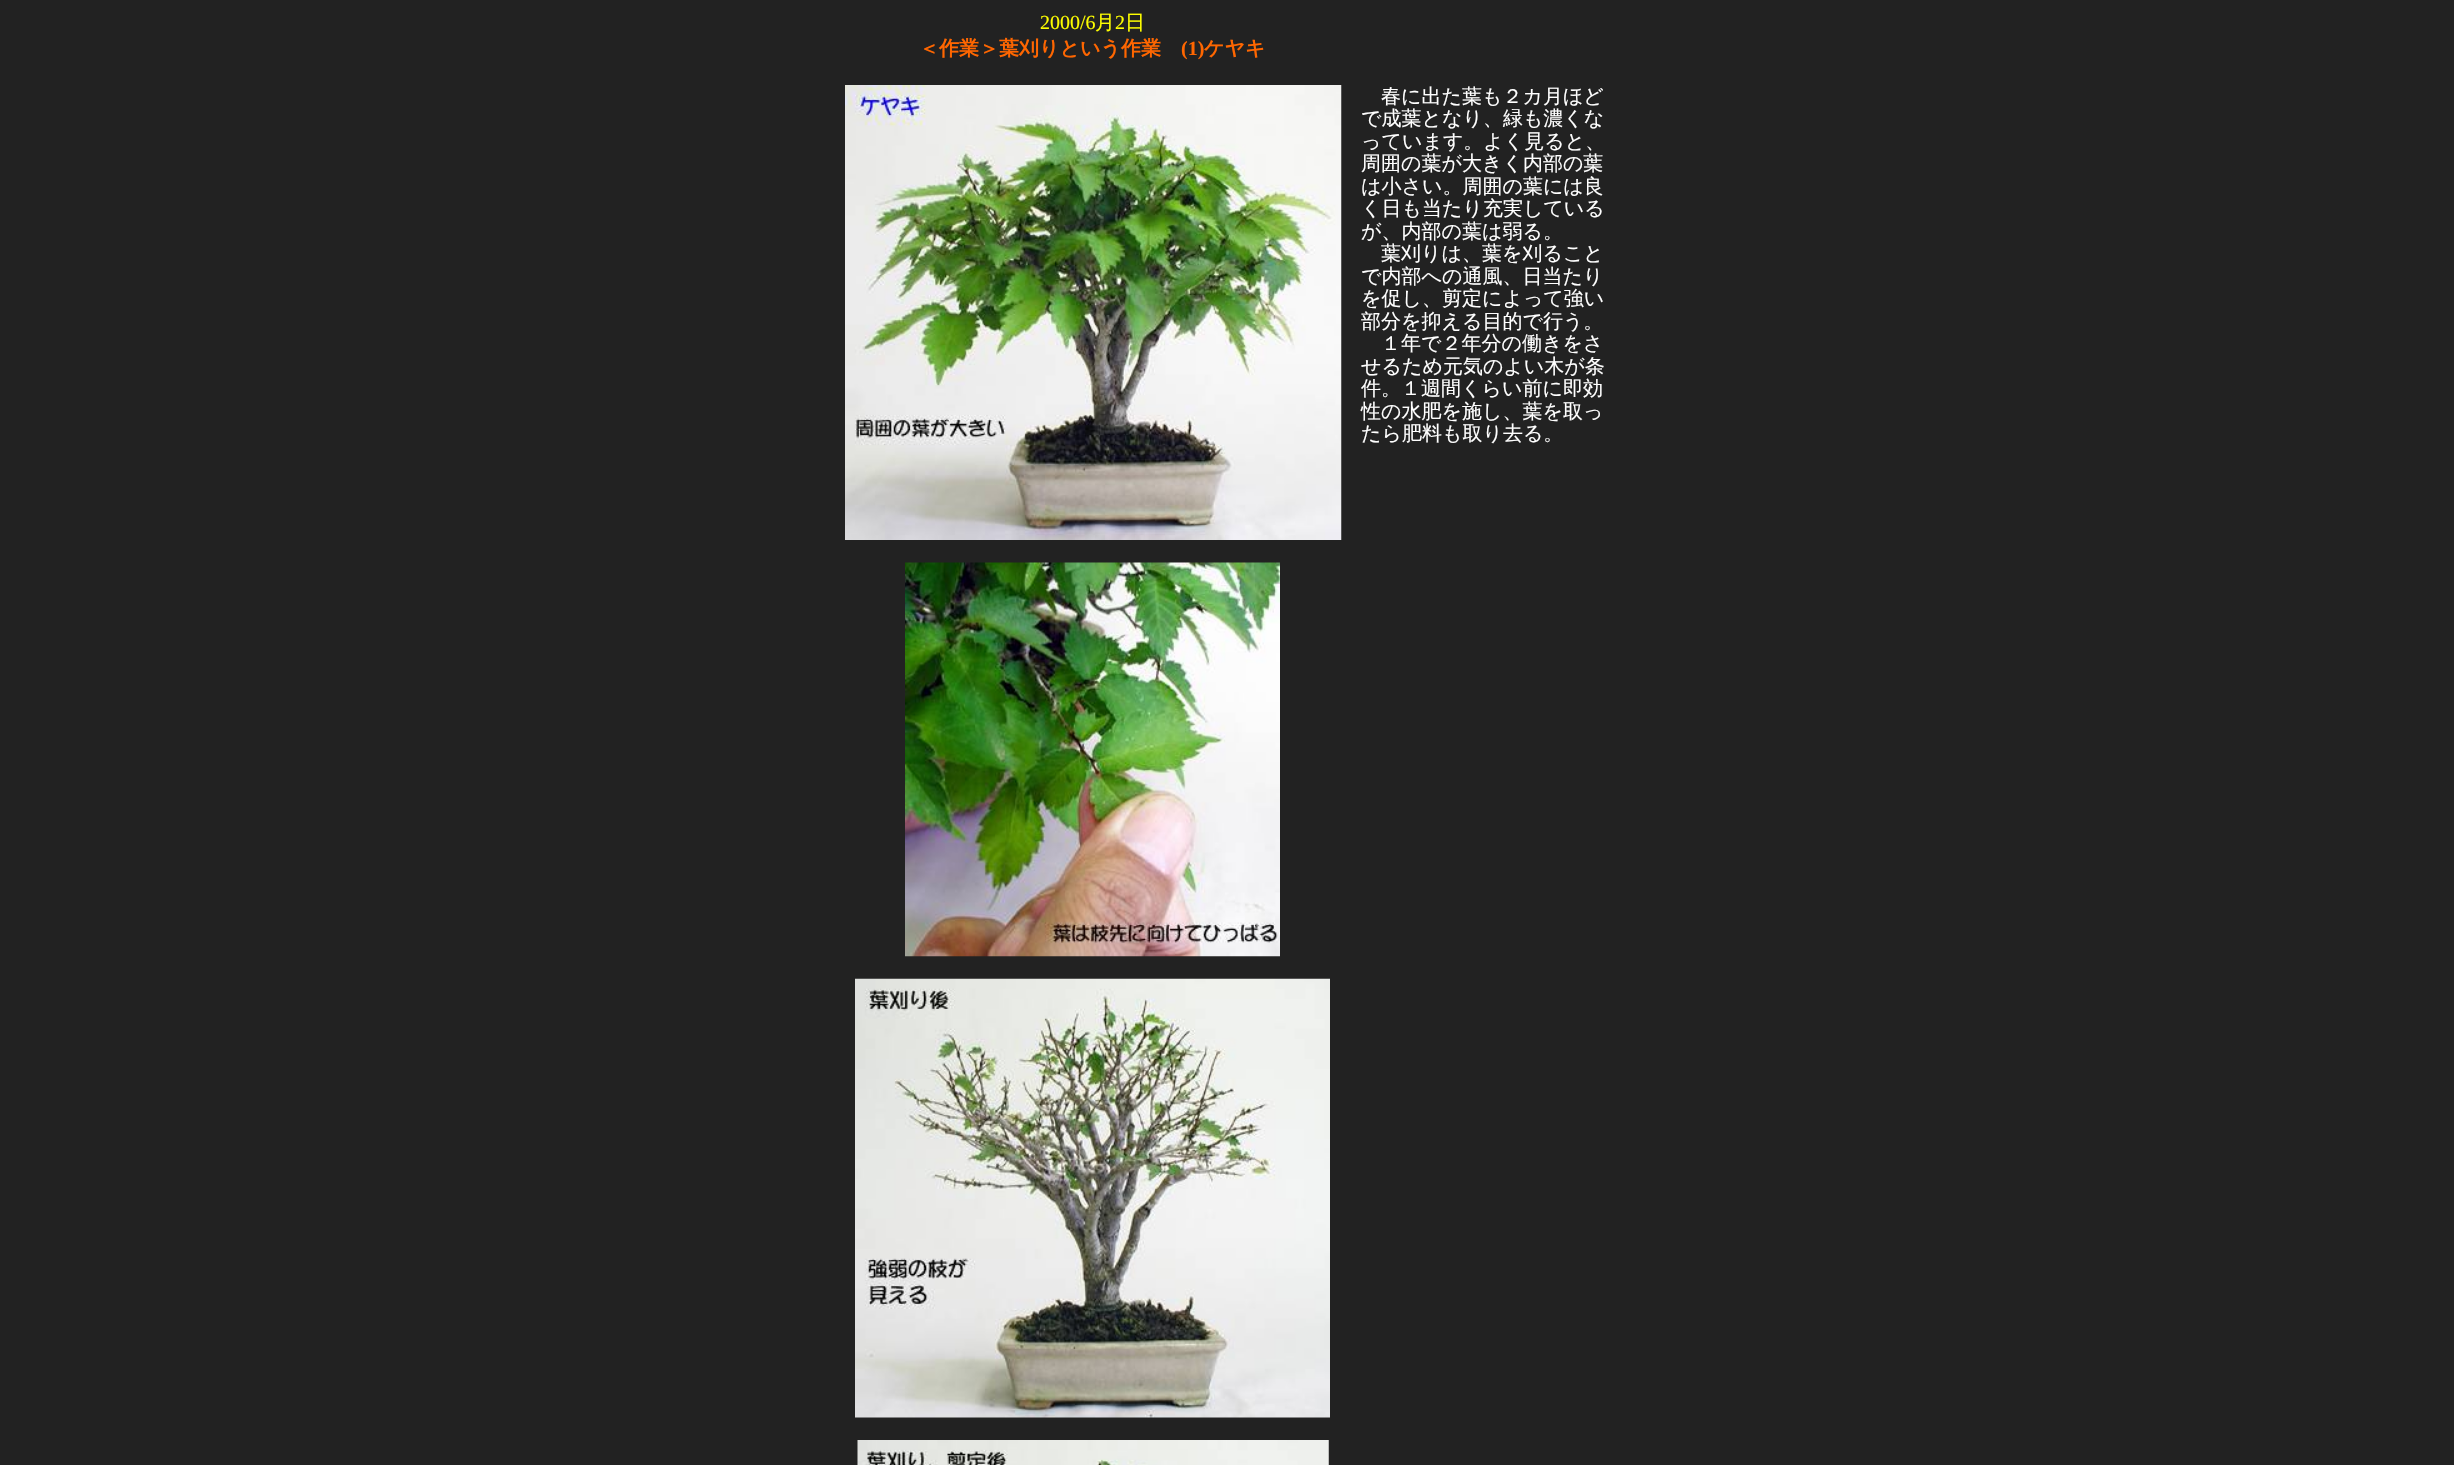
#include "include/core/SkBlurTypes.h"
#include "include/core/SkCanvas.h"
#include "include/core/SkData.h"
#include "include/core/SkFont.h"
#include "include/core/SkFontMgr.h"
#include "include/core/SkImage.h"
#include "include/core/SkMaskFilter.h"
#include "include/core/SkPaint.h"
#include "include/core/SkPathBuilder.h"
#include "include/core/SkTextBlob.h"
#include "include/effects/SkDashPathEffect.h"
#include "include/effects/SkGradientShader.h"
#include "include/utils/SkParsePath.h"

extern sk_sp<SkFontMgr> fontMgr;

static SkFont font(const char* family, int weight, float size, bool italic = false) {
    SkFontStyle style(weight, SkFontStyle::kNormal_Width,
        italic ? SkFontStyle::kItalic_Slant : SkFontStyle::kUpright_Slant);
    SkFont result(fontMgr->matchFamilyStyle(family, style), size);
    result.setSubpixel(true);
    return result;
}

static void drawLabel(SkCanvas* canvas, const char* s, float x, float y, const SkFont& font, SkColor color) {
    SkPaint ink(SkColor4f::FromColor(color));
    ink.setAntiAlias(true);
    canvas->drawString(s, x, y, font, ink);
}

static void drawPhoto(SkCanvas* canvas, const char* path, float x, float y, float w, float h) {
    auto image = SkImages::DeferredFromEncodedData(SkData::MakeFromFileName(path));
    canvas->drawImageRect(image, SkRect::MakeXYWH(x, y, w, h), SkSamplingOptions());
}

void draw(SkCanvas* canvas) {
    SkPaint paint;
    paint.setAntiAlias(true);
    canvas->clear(0xFF222222);
    SkFont font1 = font("Liberation Serif", 400, 20);
    drawLabel(canvas, "2000/6", 1040, 29, font1, 0xFFFFFF00);
    SkFont font2 = font("WenQuanYi Zen Hei", 500, 20);
    drawLabel(canvas, "月", 1095, 29, font2, 0xFFFFFF00);
    drawLabel(canvas, "2", 1115, 29, font1, 0xFFFFFF00);
    drawLabel(canvas, "日", 1125, 29, font2, 0xFFFFFF00);
    SkFont font3 = font("WenQuanYi Zen Hei", 700, 20);
    drawLabel(canvas, "＜作業＞葉刈りという作業", 919, 55, font3, 0xFFFF6600);
    SkFont font4 = font("Liberation Serif", 700, 20);
    drawLabel(canvas, "(1)", 1181, 55, font4, 0xFFFF6600);
    drawLabel(canvas, "ケヤキ", 1204, 55, font3, 0xFFFF6600);
    drawPhoto(canvas, "assets/img1.png", 845, 85, 497, 455);
    drawPhoto(canvas, "assets/img2.png", 905, 562, 375, 395);
    drawPhoto(canvas, "assets/img3.png", 855, 978, 475, 440);
    drawPhoto(canvas, "assets/img4.png", 857, 1440, 472, 25);
    drawLabel(canvas, "春に出た葉も２カ月ほど", 1381, 103, font2, 0xFFFFFFFF);
    drawLabel(canvas, "で成葉となり、緑も濃くな", 1361, 125, font2, 0xFFFFFFFF);
    drawLabel(canvas, "っています。よく見ると、", 1361, 148, font2, 0xFFFFFFFF);
    drawLabel(canvas, "周囲の葉が大きく内部の葉", 1361, 170, font2, 0xFFFFFFFF);
    drawLabel(canvas, "は小さい。周囲の葉には良", 1361, 193, font2, 0xFFFFFFFF);
    drawLabel(canvas, "く日も当たり充実している", 1361, 215, font2, 0xFFFFFFFF);
    drawLabel(canvas, "が、内部の葉は弱る。", 1361, 238, font2, 0xFFFFFFFF);
    drawLabel(canvas, "葉刈りは、葉を刈ること", 1381, 260, font2, 0xFFFFFFFF);
    drawLabel(canvas, "で内部への通風、日当たり", 1361, 283, font2, 0xFFFFFFFF);
    drawLabel(canvas, "を促し、剪定によって強い", 1361, 305, font2, 0xFFFFFFFF);
    drawLabel(canvas, "部分を抑える目的で行う。", 1361, 328, font2, 0xFFFFFFFF);
    drawLabel(canvas, "１年で２年分の働きをさ", 1381, 350, font2, 0xFFFFFFFF);
    drawLabel(canvas, "せるため元気のよい木が条", 1361, 373, font2, 0xFFFFFFFF);
    drawLabel(canvas, "件。１週間くらい前に即効", 1361, 395, font2, 0xFFFFFFFF);
    drawLabel(canvas, "性の水肥を施し、葉を取っ", 1361, 418, font2, 0xFFFFFFFF);
    drawLabel(canvas, "たら肥料も取り去る。", 1361, 440, font2, 0xFFFFFFFF);
}
